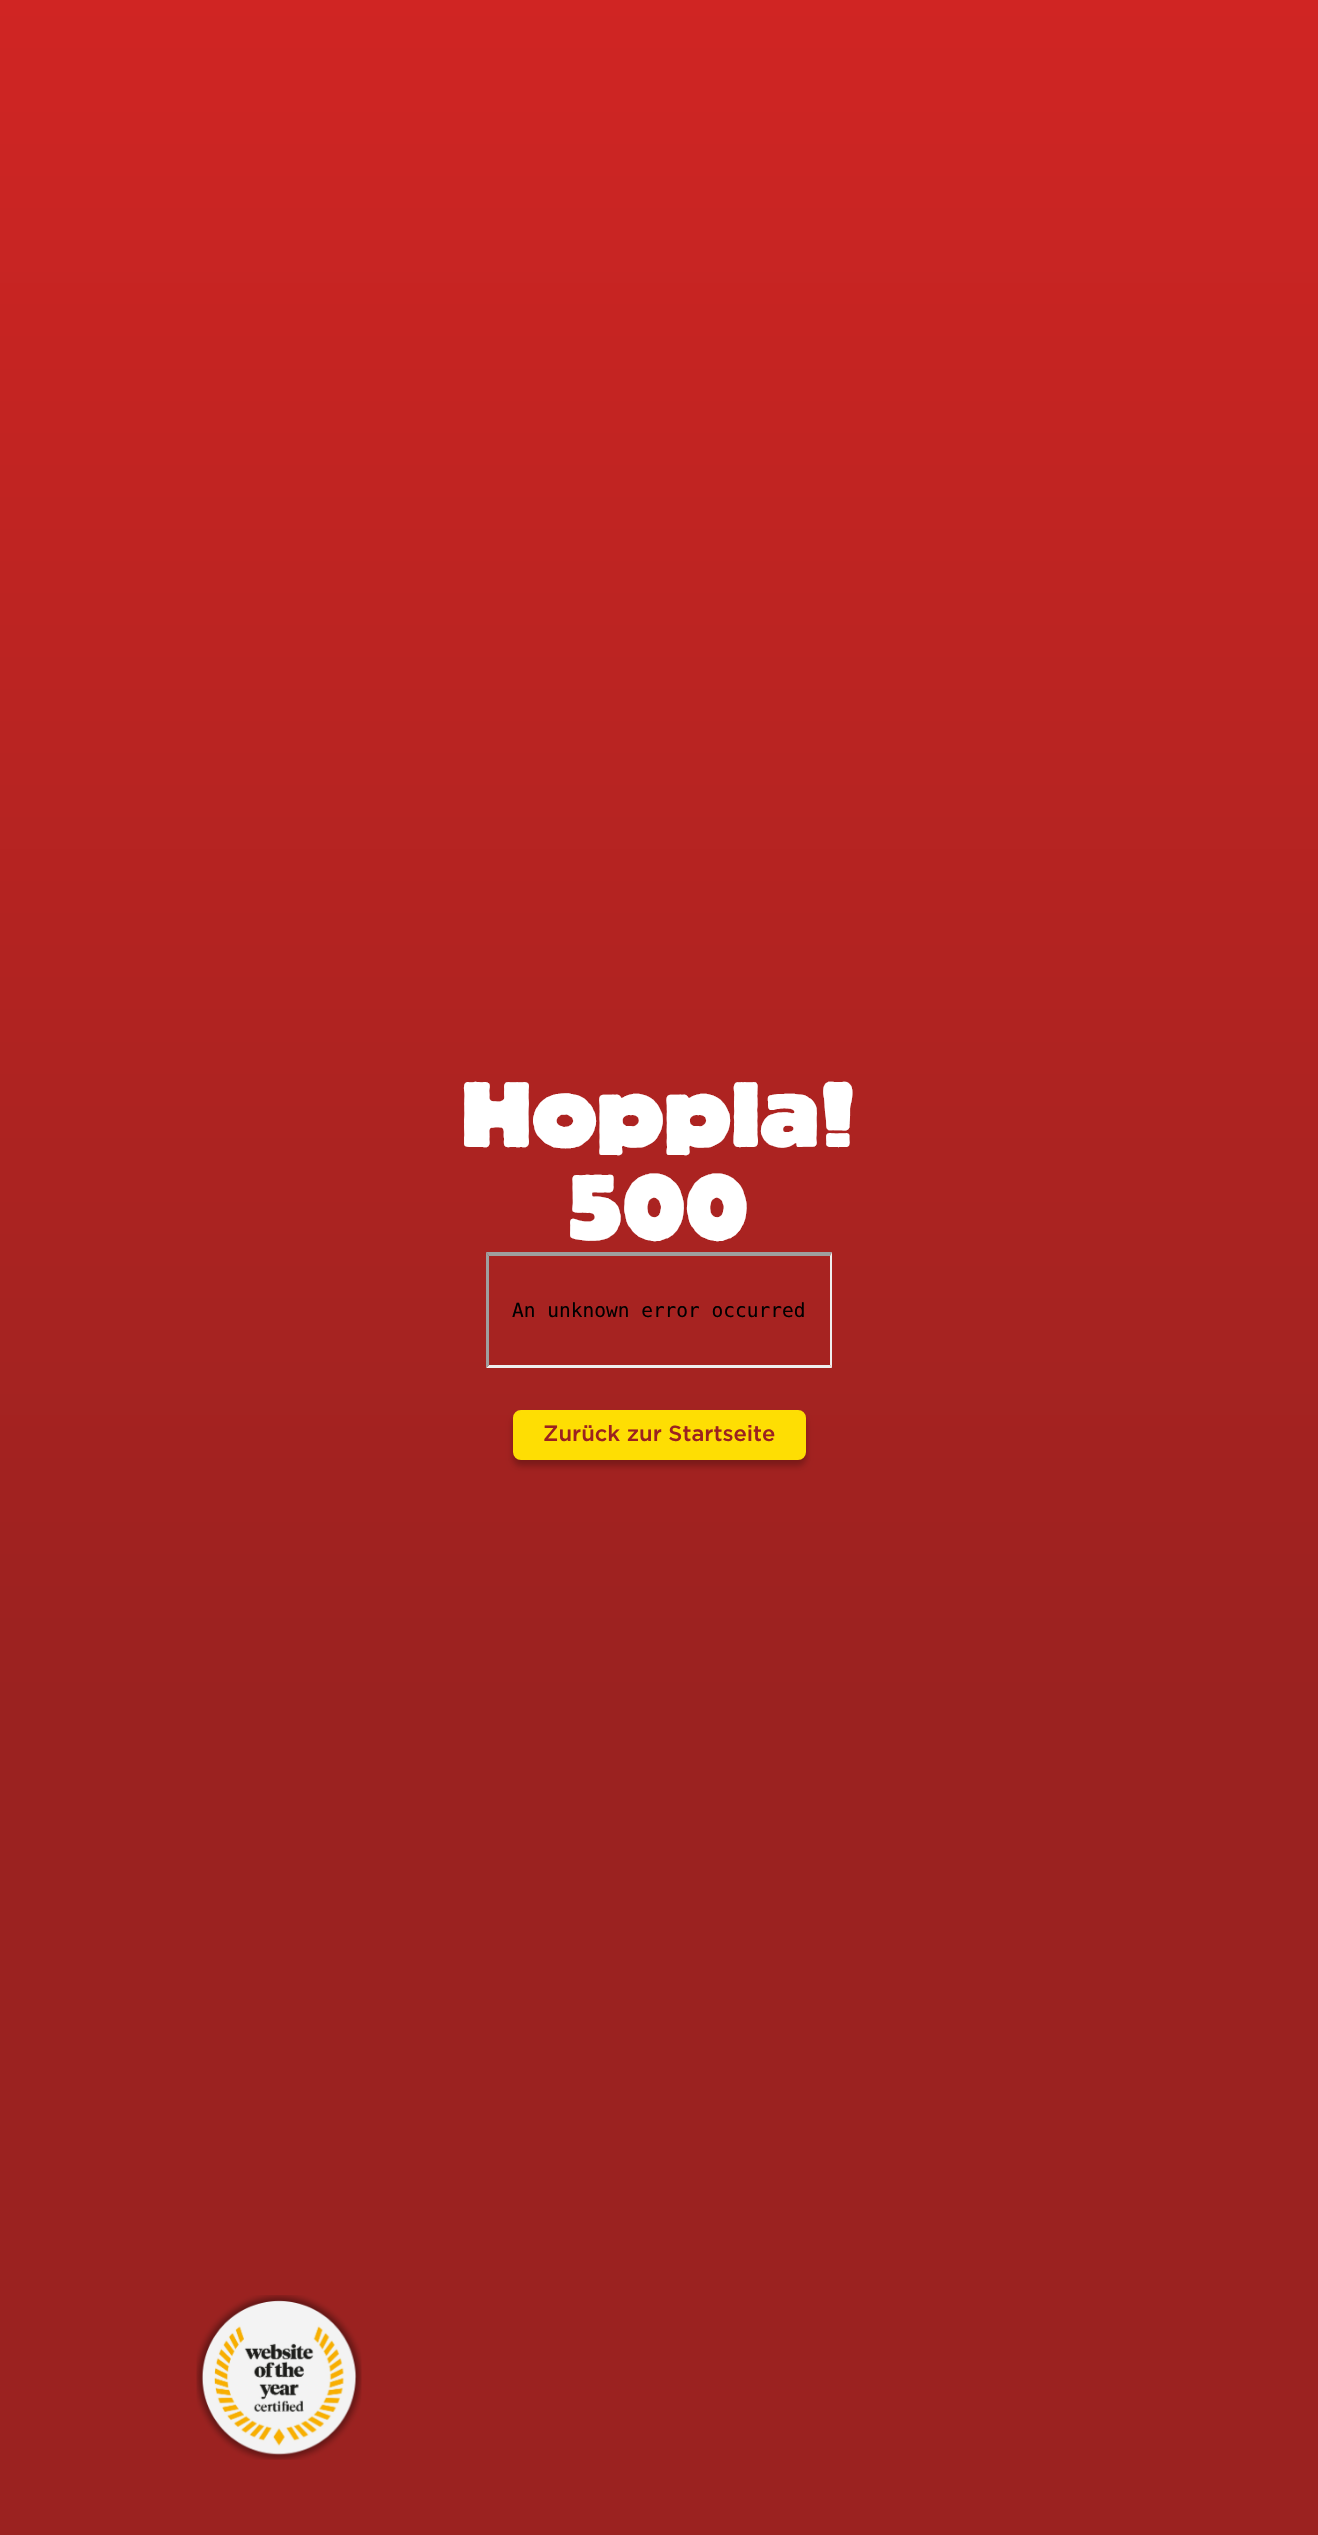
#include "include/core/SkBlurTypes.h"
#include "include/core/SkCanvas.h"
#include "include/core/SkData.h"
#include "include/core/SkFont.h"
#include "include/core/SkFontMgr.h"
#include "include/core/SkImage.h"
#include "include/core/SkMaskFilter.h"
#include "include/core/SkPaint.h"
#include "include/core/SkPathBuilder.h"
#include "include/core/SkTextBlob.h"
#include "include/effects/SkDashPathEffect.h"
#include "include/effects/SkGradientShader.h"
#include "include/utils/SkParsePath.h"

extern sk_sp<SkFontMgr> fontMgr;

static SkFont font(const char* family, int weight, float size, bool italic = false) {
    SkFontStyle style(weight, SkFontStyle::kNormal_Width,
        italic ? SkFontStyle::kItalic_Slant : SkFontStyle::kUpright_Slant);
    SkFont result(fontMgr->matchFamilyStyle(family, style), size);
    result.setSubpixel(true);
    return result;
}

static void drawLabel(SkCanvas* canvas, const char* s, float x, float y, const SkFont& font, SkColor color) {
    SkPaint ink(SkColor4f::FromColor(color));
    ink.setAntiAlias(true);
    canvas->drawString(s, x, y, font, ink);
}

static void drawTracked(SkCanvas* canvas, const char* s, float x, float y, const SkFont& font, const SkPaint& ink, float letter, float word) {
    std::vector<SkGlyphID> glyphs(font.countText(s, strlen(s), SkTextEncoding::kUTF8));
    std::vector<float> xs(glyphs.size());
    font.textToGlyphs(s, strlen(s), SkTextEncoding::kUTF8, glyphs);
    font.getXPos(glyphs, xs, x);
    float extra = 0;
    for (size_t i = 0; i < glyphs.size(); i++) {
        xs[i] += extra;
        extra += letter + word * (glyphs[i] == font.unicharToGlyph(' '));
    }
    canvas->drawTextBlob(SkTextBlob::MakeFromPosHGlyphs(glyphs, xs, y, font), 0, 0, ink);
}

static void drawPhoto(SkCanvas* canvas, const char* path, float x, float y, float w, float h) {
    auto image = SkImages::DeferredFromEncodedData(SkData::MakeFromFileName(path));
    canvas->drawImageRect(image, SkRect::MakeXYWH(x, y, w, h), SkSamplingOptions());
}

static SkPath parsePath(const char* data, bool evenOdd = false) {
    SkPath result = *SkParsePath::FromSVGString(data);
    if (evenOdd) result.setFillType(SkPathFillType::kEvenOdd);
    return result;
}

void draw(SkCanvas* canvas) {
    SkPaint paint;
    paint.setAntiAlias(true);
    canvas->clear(0xFFFFFFFF);
    {
        const SkColor colors[] = {0xFFD02523, 0xFF9B2220};
        const float stops[] = {0, 0.67f};
        const SkPoint ends[] = {{659, 0}, {659, 2535}};
        paint.setShader(SkGradientShader::MakeLinear(ends, colors, stops, 2, SkTileMode::kClamp));
        paint.setAlpha(255);
    }
    canvas->drawRect(SkRect::MakeXYWH(0, 0, 1318, 2535), paint);
    SkFont font1 = font("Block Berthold", 900, 92);
    drawLabel(canvas, "Hoppla!", 461, 1147, font1, 0xFFFFFFFF);
    paint.setShader(nullptr);
    paint.setColor(0xFFFFFFFF);
    drawTracked(canvas, "500", 570, 1240, font1, paint, 1.5f, 0);
    paint.setColor(0xFF9F9F9F);
    canvas->drawPath(parsePath("M486 1252H832L830 1256H489Z"), paint);
    paint.setColor(0xFFEFEFEF);
    canvas->drawPath(parsePath("M832 1252V1368L830 1365V1256Z"), paint);
    canvas->drawPath(parsePath("M832 1368H486L489 1365H830Z"), paint);
    paint.setColor(0xFF9F9F9F);
    canvas->drawPath(parsePath("M486 1368V1252L489 1256V1365Z"), paint);
    SkFont font2 = font("DejaVu Sans Mono", 400, 19.5f);
    drawLabel(canvas, "An unknown error occurred", 512, 1317, font2, 0xFF000000);
    paint.setColor(0x40000000);
    paint.setMaskFilter(SkMaskFilter::MakeBlur(kNormal_SkBlurStyle, 3));
    canvas->drawRoundRect(SkRect::MakeXYWH(513, 1416, 293, 50), 8, 8, paint);
    paint.setMaskFilter(nullptr);
    paint.setColor(0xFFFEDE03);
    canvas->drawRoundRect(SkRect::MakeXYWH(514.5f, 1411.5f, 290, 47), 6.5f, 6.5f, paint);
    paint.setStroke(true);
    paint.setStrokeWidth(3);
    canvas->drawRoundRect(SkRect::MakeXYWH(514.5f, 1411.5f, 290, 47), 6.5f, 6.5f, paint);
    SkFont font3 = font("Gotham", 500, 22);
    drawLabel(canvas, "Zurück zur Startseite", 543, 1441, font3, 0xFF9B2220);
    drawPhoto(canvas, "assets/img1.png", 196, 2295, 166, 165);
}
